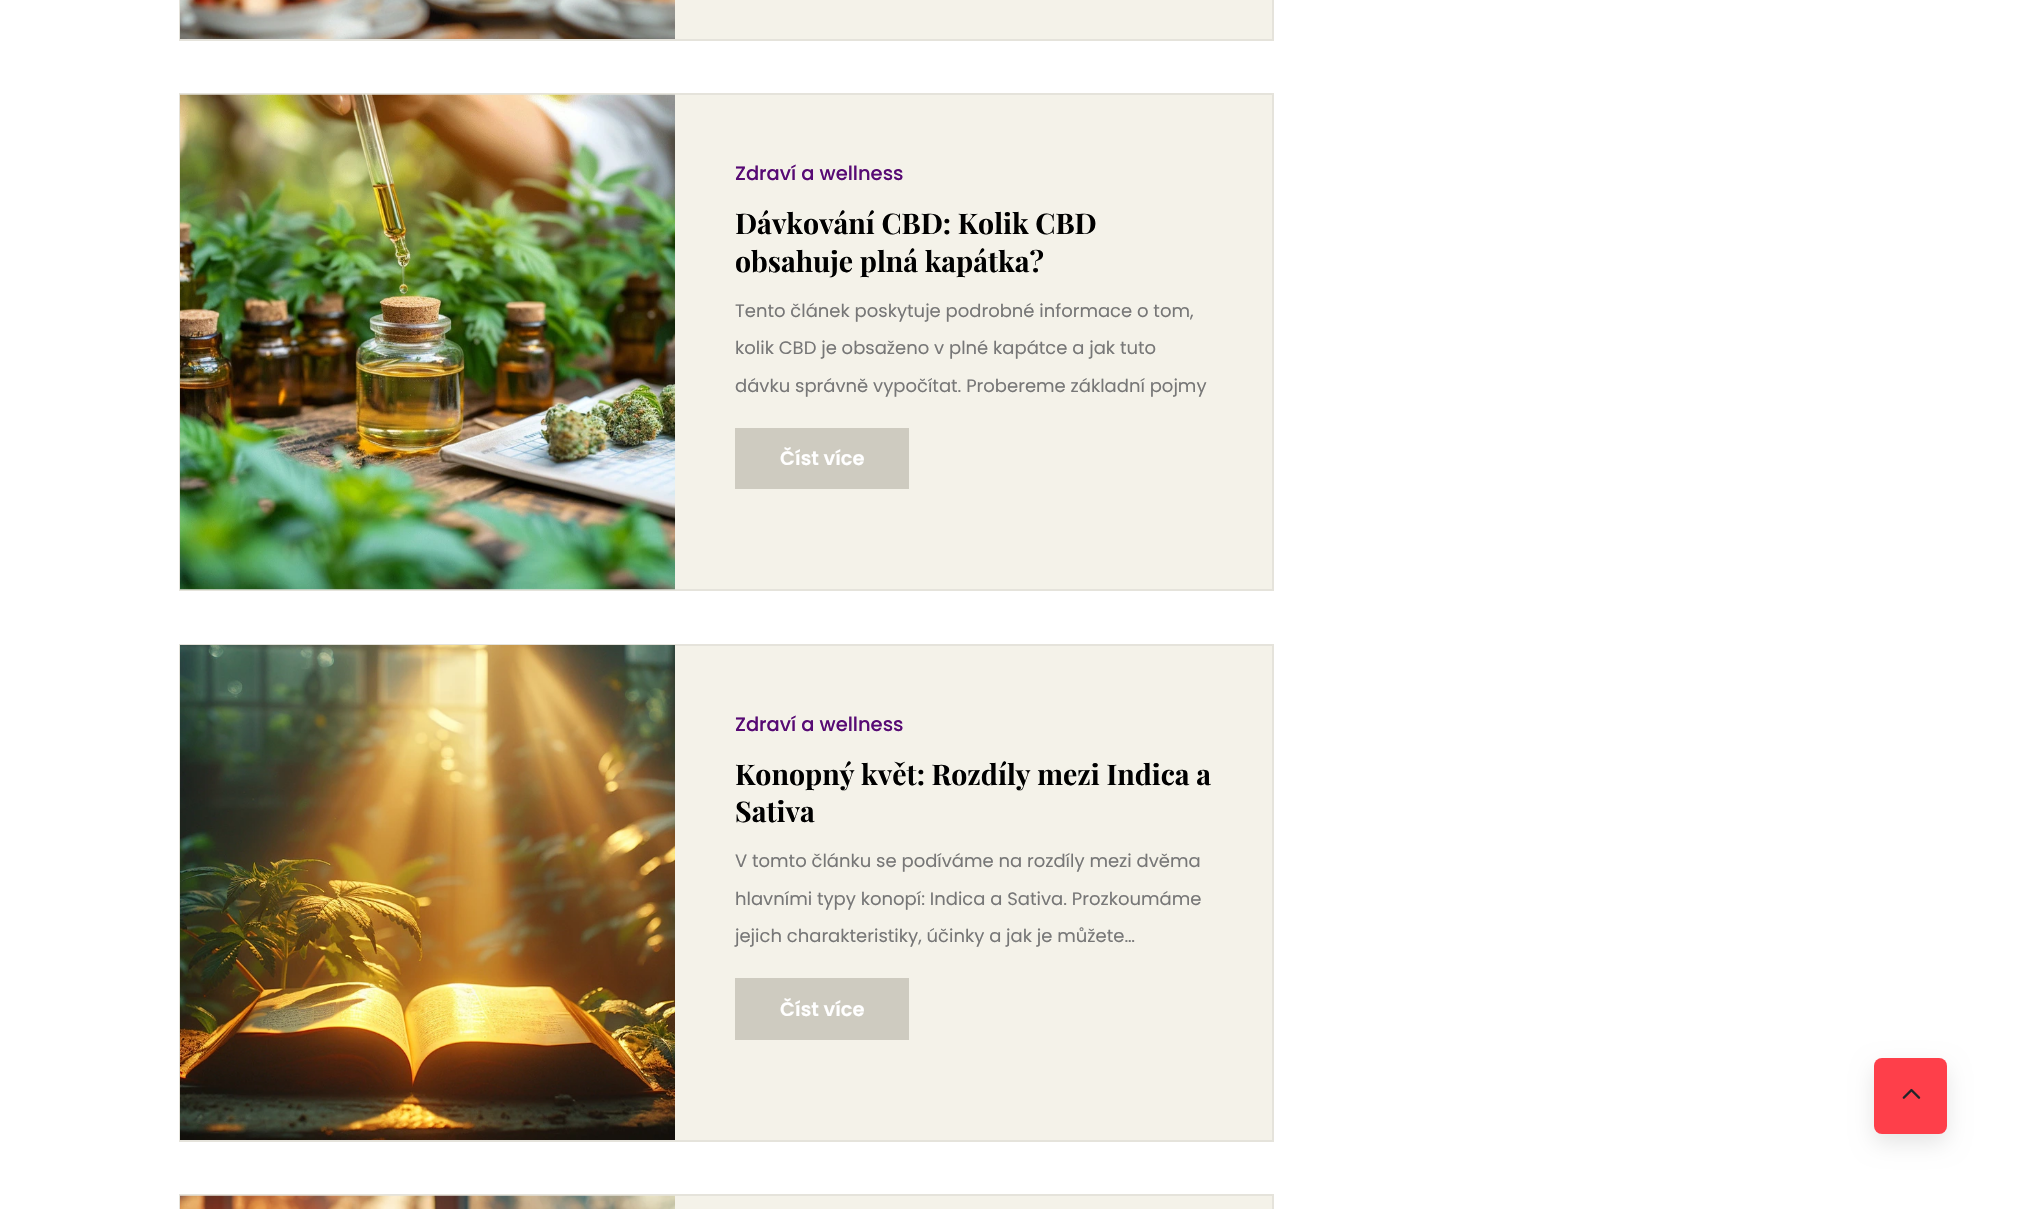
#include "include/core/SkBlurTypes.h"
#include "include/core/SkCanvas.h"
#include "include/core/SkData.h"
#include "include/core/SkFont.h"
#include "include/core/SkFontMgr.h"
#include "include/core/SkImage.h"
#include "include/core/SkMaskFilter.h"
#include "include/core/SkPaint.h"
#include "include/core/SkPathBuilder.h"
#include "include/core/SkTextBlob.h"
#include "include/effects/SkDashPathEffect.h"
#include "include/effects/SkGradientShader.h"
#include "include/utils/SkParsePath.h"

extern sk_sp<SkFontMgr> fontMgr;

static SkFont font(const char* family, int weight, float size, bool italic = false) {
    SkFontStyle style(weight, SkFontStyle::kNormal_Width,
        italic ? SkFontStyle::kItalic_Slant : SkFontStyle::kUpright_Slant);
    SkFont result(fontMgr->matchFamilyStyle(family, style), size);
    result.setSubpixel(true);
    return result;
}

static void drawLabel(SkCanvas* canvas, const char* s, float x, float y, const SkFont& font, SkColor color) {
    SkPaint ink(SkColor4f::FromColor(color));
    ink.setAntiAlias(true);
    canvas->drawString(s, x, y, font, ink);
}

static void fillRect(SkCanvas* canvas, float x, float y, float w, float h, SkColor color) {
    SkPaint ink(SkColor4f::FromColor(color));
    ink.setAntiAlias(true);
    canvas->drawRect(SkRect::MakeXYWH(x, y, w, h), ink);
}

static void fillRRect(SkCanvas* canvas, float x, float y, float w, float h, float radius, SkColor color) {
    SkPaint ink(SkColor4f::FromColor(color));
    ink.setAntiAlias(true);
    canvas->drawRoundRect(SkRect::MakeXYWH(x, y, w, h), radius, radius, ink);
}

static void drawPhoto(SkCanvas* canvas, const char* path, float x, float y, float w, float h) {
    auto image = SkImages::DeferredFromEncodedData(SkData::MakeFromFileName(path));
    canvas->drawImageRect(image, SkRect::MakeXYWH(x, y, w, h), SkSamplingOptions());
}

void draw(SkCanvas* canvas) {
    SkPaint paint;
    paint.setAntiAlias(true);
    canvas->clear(0xFFFFFFFF);
    fillRect(canvas, 675, 0, 597, 39, 0xFFF4F2E9);
    paint.setStroke(true);
    paint.setStrokeWidth(2);
    paint.setColor(0xFFE5E3DB);
    canvas->drawRect(SkRect::MakeXYWH(180, -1, 1093, 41), paint);
    drawPhoto(canvas, "assets/img1.png", 180, 0, 495, 39);
    fillRect(canvas, 675, 95, 597, 494, 0xFFF4F2E9);
    canvas->drawRect(SkRect::MakeXYWH(180, 94, 1093, 496), paint);
    drawPhoto(canvas, "assets/img2.png", 180, 94, 495, 496);
    SkFont font1 = font("Poppins", 500, 19.5f);
    drawLabel(canvas, "Zdraví a wellness", 735, 180, font1, 0xFF570A74);
    SkFont font2 = font("Playfair Display", 700, 28.5f);
    drawLabel(canvas, "Dávkování CBD: Kolik CBD", 735, 234, font2, 0xFF000000);
    drawLabel(canvas, "obsahuje plná kapátka?", 735, 272, font2, 0xFF000000);
    SkFont font3 = font("Poppins", 400, 18);
    drawLabel(canvas, "Tento článek poskytuje podrobné informace o tom,", 735, 317, font3, 0xFF777777);
    drawLabel(canvas, "kolik CBD je obsaženo v plné kapátce a jak tuto", 735, 354, font3, 0xFF777777);
    drawLabel(canvas, "dávku správně vypočítat. Probereme základní pojmy", 735, 392, font3, 0xFF777777);
    fillRect(canvas, 735, 428, 174, 61, 0xFFCECBC0);
    SkFont font4 = font("Poppins", 600, 19.5f);
    drawLabel(canvas, "Číst více", 780, 465, font4, 0xFFFFFFFF);
    fillRect(canvas, 675, 646, 597, 494, 0xFFF4F2E9);
    canvas->drawRect(SkRect::MakeXYWH(180, 645, 1093, 496), paint);
    drawPhoto(canvas, "assets/img3.png", 180, 645, 495, 495);
    drawLabel(canvas, "Zdraví a wellness", 735, 731, font1, 0xFF570A74);
    drawLabel(canvas, "Konopný květ: Rozdíly mezi Indica a", 735, 785, font2, 0xFF000000);
    drawLabel(canvas, "Sativa", 735, 822, font2, 0xFF000000);
    drawLabel(canvas, "V tomto článku se podíváme na rozdíly mezi dvěma", 735, 867, font3, 0xFF777777);
    drawLabel(canvas, "hlavními typy konopí: Indica a Sativa. Prozkoumáme", 735, 905, font3, 0xFF777777);
    drawLabel(canvas, "jejich charakteristiky, účinky a jak je můžete…", 735, 942, font3, 0xFF777777);
    fillRect(canvas, 735, 978, 174, 62, 0xFFCECBC0);
    drawLabel(canvas, "Číst více", 780, 1016, font4, 0xFFFFFFFF);
    fillRect(canvas, 675, 1196, 597, 13, 0xFFF4F2E9);
    canvas->drawRect(SkRect::MakeXYWH(180, 1195, 1093, 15), paint);
    drawPhoto(canvas, "assets/img4.png", 180, 1195, 495, 14);
    paint.setStroke(false);
    paint.setColor(0x1A000000);
    paint.setMaskFilter(SkMaskFilter::MakeBlur(kNormal_SkBlurStyle, 11));
    canvas->drawRoundRect(SkRect::MakeXYWH(1874, 1067, 73, 76), 8, 8, paint);
    paint.setMaskFilter(nullptr);
    fillRRect(canvas, 1874, 1058, 73, 76, 8, 0xFFFE3F4A);
    drawPhoto(canvas, "assets/img5.png", 1902, 1088, 19, 11);
}
